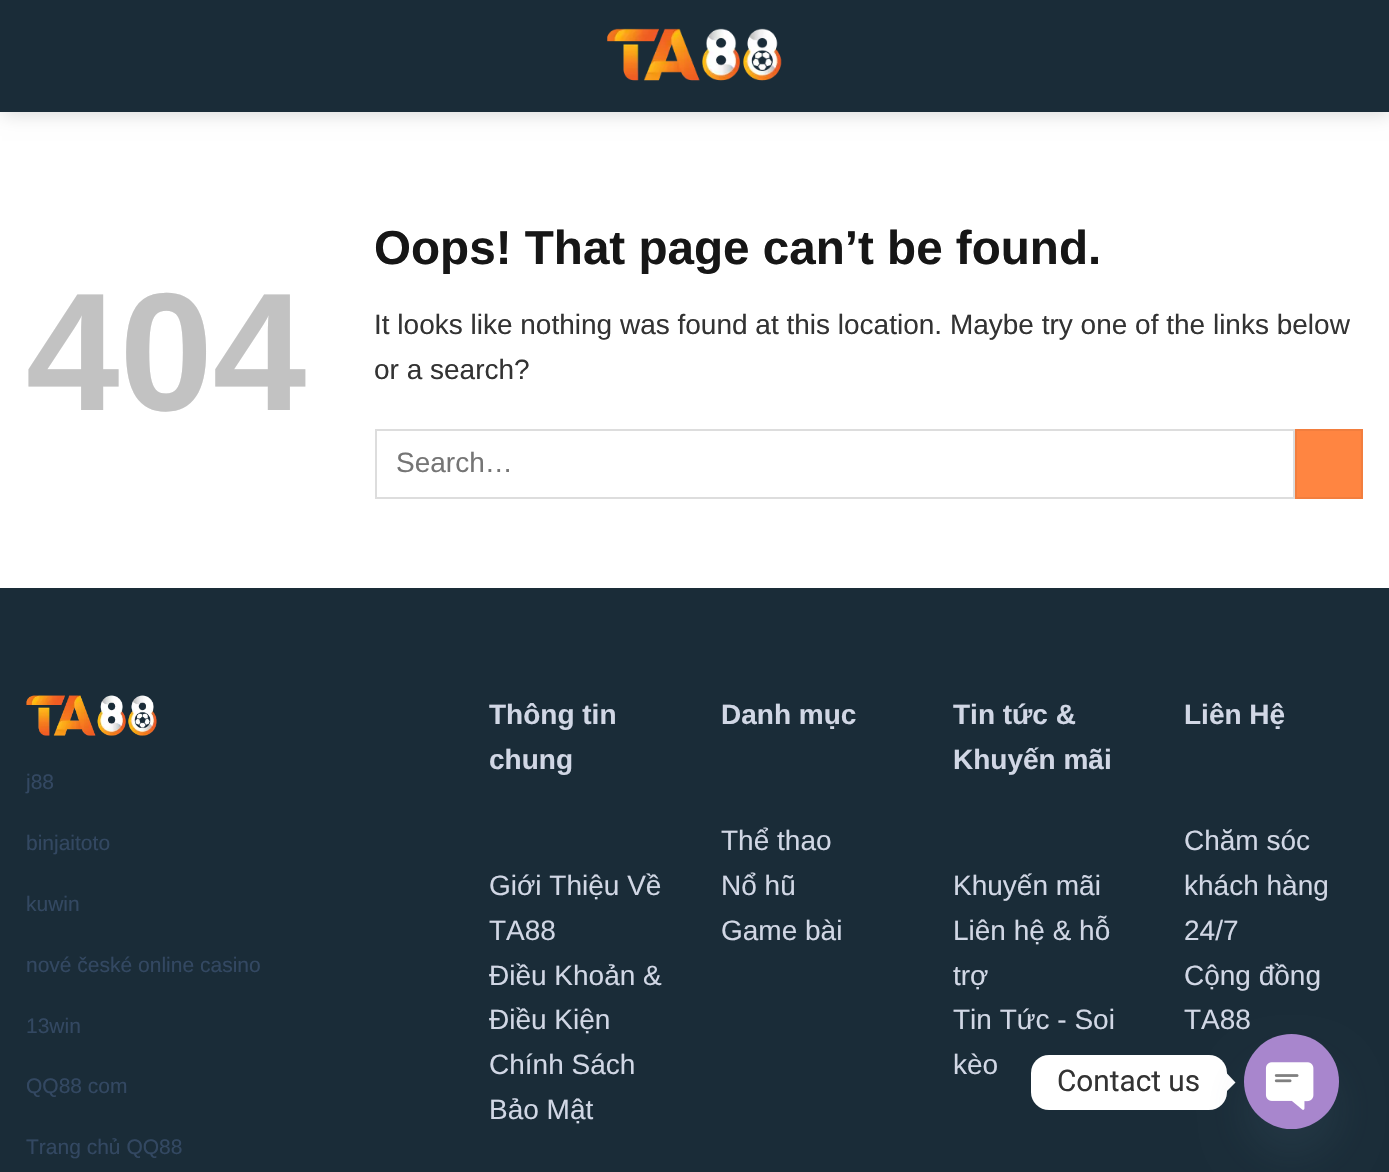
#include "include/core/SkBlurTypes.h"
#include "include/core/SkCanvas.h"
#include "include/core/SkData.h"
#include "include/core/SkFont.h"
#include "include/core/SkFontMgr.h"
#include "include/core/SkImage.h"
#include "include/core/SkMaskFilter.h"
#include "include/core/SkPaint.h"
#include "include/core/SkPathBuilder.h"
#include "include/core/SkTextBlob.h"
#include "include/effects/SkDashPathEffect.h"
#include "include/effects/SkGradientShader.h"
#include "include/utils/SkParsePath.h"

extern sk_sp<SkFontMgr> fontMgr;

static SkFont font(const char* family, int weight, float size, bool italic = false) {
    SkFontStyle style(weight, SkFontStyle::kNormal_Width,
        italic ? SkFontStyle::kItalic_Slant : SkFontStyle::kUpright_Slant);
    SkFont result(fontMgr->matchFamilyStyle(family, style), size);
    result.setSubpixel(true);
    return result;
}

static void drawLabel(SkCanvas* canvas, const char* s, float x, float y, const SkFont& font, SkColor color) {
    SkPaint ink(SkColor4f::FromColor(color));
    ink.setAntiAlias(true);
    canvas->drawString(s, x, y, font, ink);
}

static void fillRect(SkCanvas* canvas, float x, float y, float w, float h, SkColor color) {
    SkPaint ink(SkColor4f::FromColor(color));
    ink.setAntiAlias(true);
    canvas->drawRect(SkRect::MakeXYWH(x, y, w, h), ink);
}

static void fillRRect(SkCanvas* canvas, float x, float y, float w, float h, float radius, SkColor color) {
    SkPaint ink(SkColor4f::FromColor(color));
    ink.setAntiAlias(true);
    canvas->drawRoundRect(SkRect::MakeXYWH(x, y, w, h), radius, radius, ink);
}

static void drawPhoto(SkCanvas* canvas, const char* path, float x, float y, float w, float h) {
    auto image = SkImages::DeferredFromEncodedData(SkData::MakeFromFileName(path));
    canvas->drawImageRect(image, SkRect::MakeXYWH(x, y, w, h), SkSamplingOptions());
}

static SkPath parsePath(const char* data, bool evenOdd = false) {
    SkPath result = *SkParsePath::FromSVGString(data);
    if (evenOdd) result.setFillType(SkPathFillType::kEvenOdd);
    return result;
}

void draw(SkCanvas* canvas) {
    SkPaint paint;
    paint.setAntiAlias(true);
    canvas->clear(0xFFFFFFFF);
    paint.setColor(0x26000000);
    paint.setMaskFilter(SkMaskFilter::MakeBlur(kNormal_SkBlurStyle, 9));
    canvas->drawRect(SkRect::MakeXYWH(2, 2, 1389, 112), paint);
    paint.setMaskFilter(nullptr);
    fillRect(canvas, 0, 0, 1389, 112, 0xFF1A2C38);
    drawPhoto(canvas, "assets/img1.png", 607, 28, 175, 53);
    SkFont font1 = font("Liberation Sans", 700, 168);
    drawLabel(canvas, "404", 26, 410, font1, 0xFFC2C2C2);
    SkFont font2 = font("Liberation Sans", 700, 47.6f);
    drawLabel(canvas, "Oops! That page can’t be found.", 374, 264, font2, 0xFF161616);
    SkFont font3 = font("Liberation Sans", 400, 28);
    drawLabel(canvas, "It looks like nothing was found at this location. Maybe try one of the links below", 374, 334, font3, 0xFF333333);
    drawLabel(canvas, "or a search?", 374, 379, font3, 0xFF333333);
    paint.setStroke(true);
    paint.setStrokeWidth(2);
    paint.setColor(0xFFDDDDDD);
    canvas->drawRect(SkRect::MakeXYWH(376, 430, 918, 68), paint);
    drawLabel(canvas, "Search…", 396, 472, font3, 0xFF757575);
    paint.setStroke(false);
    paint.setColor(0xFFFF8541);
    canvas->drawRect(SkRect::MakeXYWH(1296, 430, 66, 68), paint);
    paint.setStroke(true);
    paint.setColor(0xFFF27E3E);
    canvas->drawRect(SkRect::MakeXYWH(1296, 430, 66, 68), paint);
    fillRect(canvas, 0, 588, 1389, 584, 0xFF1A2C38);
    drawPhoto(canvas, "assets/img2.png", 26, 695, 131, 41);
    SkFont font4 = font("Liberation Sans", 400, 21);
    drawLabel(canvas, "j88", 26, 789, font4, 0xFF334862);
    drawLabel(canvas, "binjaitoto", 26, 850, font4, 0xFF334862);
    drawLabel(canvas, "kuwin", 26, 911, font4, 0xFF334862);
    drawLabel(canvas, "nové české online casino", 26, 972, font4, 0xFF334862);
    drawLabel(canvas, "13win", 26, 1033, font4, 0xFF334862);
    drawLabel(canvas, "QQ88 com", 26, 1093, font4, 0xFF334862);
    drawLabel(canvas, "Trang chủ QQ88", 26, 1154, font4, 0xFF334862);
    SkFont font5 = font("Liberation Sans", 700, 28);
    drawLabel(canvas, "Thông tin", 489, 724, font5, 0xFFD1D7E5);
    drawLabel(canvas, "chung", 489, 769, font5, 0xFFD1D7E5);
    drawLabel(canvas, "Giới Thiệu Về", 489, 895, font3, 0xFFD1D7E5);
    drawLabel(canvas, "TA88", 489, 940, font3, 0xFFD1D7E5);
    drawLabel(canvas, "Điều Khoản &", 489, 985, font3, 0xFFD1D7E5);
    drawLabel(canvas, "Điều Kiện", 489, 1029, font3, 0xFFD1D7E5);
    drawLabel(canvas, "Chính Sách", 489, 1074, font3, 0xFFD1D7E5);
    drawLabel(canvas, "Bảo Mật", 489, 1119, font3, 0xFFD1D7E5);
    drawLabel(canvas, "Danh mục", 721, 724, font5, 0xFFD1D7E5);
    drawLabel(canvas, "Thể thao", 721, 850, font3, 0xFFD1D7E5);
    drawLabel(canvas, "Nổ hũ", 721, 895, font3, 0xFFD1D7E5);
    drawLabel(canvas, "Game bài", 721, 940, font3, 0xFFD1D7E5);
    drawLabel(canvas, "Tin tức &", 953, 724, font5, 0xFFD1D7E5);
    drawLabel(canvas, "Khuyến mãi", 953, 769, font5, 0xFFD1D7E5);
    drawLabel(canvas, "Khuyến mãi", 953, 895, font3, 0xFFD1D7E5);
    drawLabel(canvas, "Liên hệ & hỗ", 953, 940, font3, 0xFFD1D7E5);
    drawLabel(canvas, "trợ", 953, 985, font3, 0xFFD1D7E5);
    drawLabel(canvas, "Tin Tức - Soi", 953, 1029, font3, 0xFFD1D7E5);
    drawLabel(canvas, "kèo", 953, 1074, font3, 0xFFD1D7E5);
    drawLabel(canvas, "Liên Hệ", 1184, 724, font5, 0xFFD1D7E5);
    drawLabel(canvas, "Chăm sóc", 1184, 850, font3, 0xFFD1D7E5);
    drawLabel(canvas, "khách hàng", 1184, 895, font3, 0xFFD1D7E5);
    drawLabel(canvas, "24/7", 1184, 940, font3, 0xFFD1D7E5);
    drawLabel(canvas, "Cộng đồng", 1184, 985, font3, 0xFFD1D7E5);
    drawLabel(canvas, "TA88", 1184, 1029, font3, 0xFFD1D7E5);
    fillRRect(canvas, 1031, 1055, 196, 55, 18, 0xFFFFFFFF);
    SkFont font6 = font("Roboto", 400, 29.75f);
    drawLabel(canvas, "Contact us", 1057, 1091, font6, 0xFF333333);
    paint.setStroke(false);
    paint.setColor(0xFFFFFFFF);
    canvas->drawPath(parsePath("M1227 1091V1073.5L1235.5 1082.5Z"), paint);
    paint.setColor(0x2949687E);
    paint.setMaskFilter(SkMaskFilter::MakeBlur(kNormal_SkBlurStyle, 21));
    canvas->drawRoundRect(SkRect::MakeXYWH(1244, 1062, 95, 95), 47.5f, 47.5f, paint);
    paint.setMaskFilter(nullptr);
    paint.setColor(0xFFA886CD);
    canvas->drawCircle(1291.5f, 1081.5f, 47.5f, paint);
    drawPhoto(canvas, "assets/img3.png", 1265, 1062, 49, 48);
}
